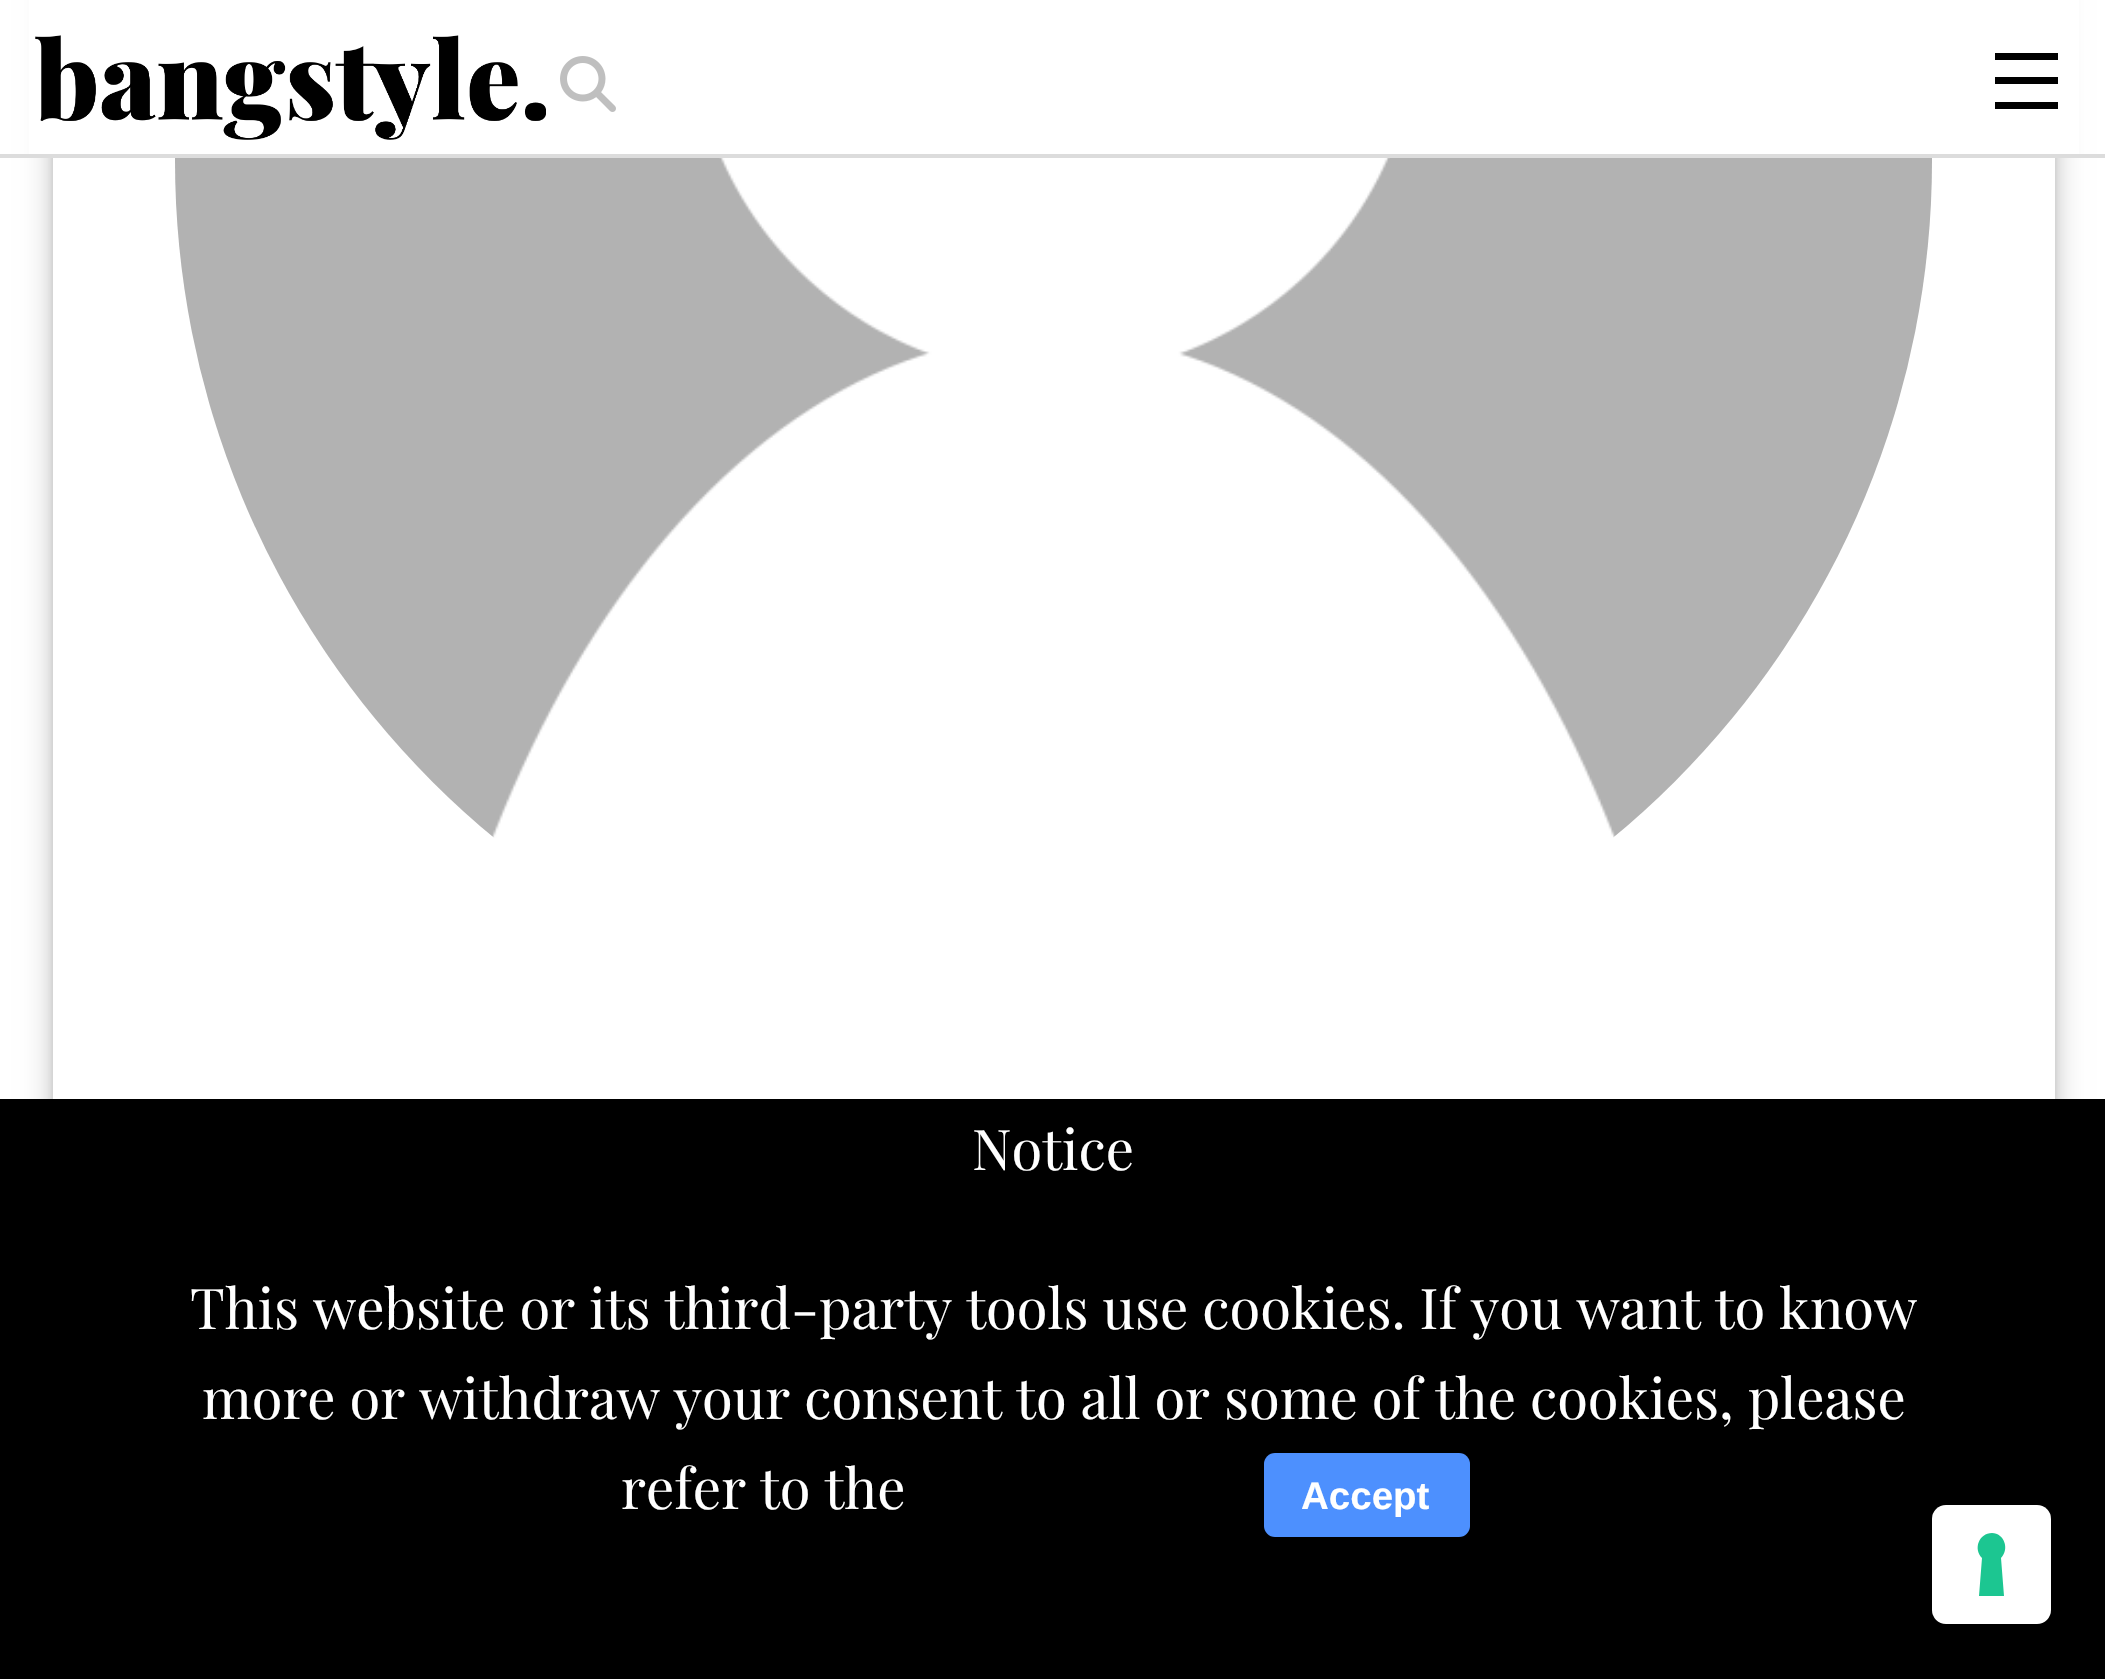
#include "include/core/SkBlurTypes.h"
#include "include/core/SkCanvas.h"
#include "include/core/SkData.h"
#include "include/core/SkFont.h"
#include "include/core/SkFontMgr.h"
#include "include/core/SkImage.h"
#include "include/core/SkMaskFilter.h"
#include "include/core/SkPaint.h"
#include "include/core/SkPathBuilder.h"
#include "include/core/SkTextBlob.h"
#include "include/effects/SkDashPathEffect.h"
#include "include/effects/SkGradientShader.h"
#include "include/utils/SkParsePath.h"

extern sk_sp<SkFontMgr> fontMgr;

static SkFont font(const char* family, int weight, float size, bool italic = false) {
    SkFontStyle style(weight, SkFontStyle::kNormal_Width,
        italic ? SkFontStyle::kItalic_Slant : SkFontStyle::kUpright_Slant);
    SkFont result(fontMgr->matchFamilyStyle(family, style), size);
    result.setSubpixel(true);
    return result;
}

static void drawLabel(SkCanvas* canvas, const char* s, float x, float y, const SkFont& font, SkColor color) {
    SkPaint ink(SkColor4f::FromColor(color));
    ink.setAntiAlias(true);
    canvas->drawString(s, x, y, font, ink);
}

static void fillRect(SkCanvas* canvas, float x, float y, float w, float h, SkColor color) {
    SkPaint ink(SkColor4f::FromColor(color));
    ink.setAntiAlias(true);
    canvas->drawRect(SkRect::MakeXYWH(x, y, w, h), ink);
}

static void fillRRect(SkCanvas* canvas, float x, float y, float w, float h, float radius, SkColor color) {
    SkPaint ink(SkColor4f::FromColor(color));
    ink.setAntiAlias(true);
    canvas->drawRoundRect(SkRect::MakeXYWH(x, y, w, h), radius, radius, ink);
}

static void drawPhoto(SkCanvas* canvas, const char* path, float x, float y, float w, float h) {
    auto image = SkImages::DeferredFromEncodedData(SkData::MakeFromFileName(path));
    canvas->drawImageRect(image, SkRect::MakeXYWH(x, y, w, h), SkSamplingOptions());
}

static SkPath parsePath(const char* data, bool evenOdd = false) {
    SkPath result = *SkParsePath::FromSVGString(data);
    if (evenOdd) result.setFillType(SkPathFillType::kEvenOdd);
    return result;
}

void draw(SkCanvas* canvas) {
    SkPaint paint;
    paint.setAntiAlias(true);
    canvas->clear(0xFFFFFFFF);
    paint.setColor(0x3D000000);
    paint.setMaskFilter(SkMaskFilter::MakeBlur(kNormal_SkBlurStyle, 14));
    canvas->drawRect(SkRect::MakeXYWH(53, -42, 2002, 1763), paint);
    paint.setMaskFilter(nullptr);
    paint.setColor(0x1F000000);
    paint.setMaskFilter(SkMaskFilter::MakeBlur(kNormal_SkBlurStyle, 3.5f));
    canvas->drawRect(SkRect::MakeXYWH(53, -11, 2002, 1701), paint);
    paint.setMaskFilter(nullptr);
    fillRect(canvas, 29, 0, 2050, 154, 0xFFFFFFFF);
    fillRect(canvas, 0, 154, 2105, 4, 0xFFDCDCDC);
    drawPhoto(canvas, "assets/img1.png", 35, 35, 511, 105);
    drawPhoto(canvas, "assets/img2.png", 560, 56, 56, 56);
    fillRect(canvas, 1995, 102, 63, 7, 0xFF000000);
    fillRect(canvas, 1995, 77, 63, 7, 0xFF000000);
    fillRect(canvas, 1995, 53, 63, 7, 0xFF000000);
    fillRect(canvas, 53, 158, 2002, 941, 0xFFFFFFFF);
    drawPhoto(canvas, "assets/img3.png", 175, 158, 1757, 680);
    fillRect(canvas, 0, 1099, 2105, 580, 0xFF000000);
    SkFont font1 = font("Playfair Display", 400, 56);
    drawLabel(canvas, "Notice", 972, 1170, font1, 0xFFFFFFFF);
    drawLabel(canvas, "This website or its third-party tools use cookies. If you want to know", 190, 1329, font1, 0xFFFFFFFF);
    drawLabel(canvas, "more or withdraw your consent to all or some of the cookies, please", 202, 1419, font1, 0xFFFFFFFF);
    drawLabel(canvas, "refer to the", 621, 1509, font1, 0xFFFFFFFF);
    fillRRect(canvas, 1264, 1453, 206, 84, 11, 0xFF4D90FE);
    SkFont font2 = font("Liberation Sans", 700, 38.5f);
    drawLabel(canvas, "Accept", 1301, 1509, font2, 0xFFFFFFFF);
    fillRRect(canvas, 1932, 1505, 119, 119, 14, 0xFFFFFFFF);
    paint.setColor(0xFF1CC691);
    canvas->drawPath(parsePath("M1992 1533C2004 1533 2010 1549 2001 1558L2004 1596H1979L1982 1558C1973 1549 1979 1533 1992 1533Z", true), paint);
}
